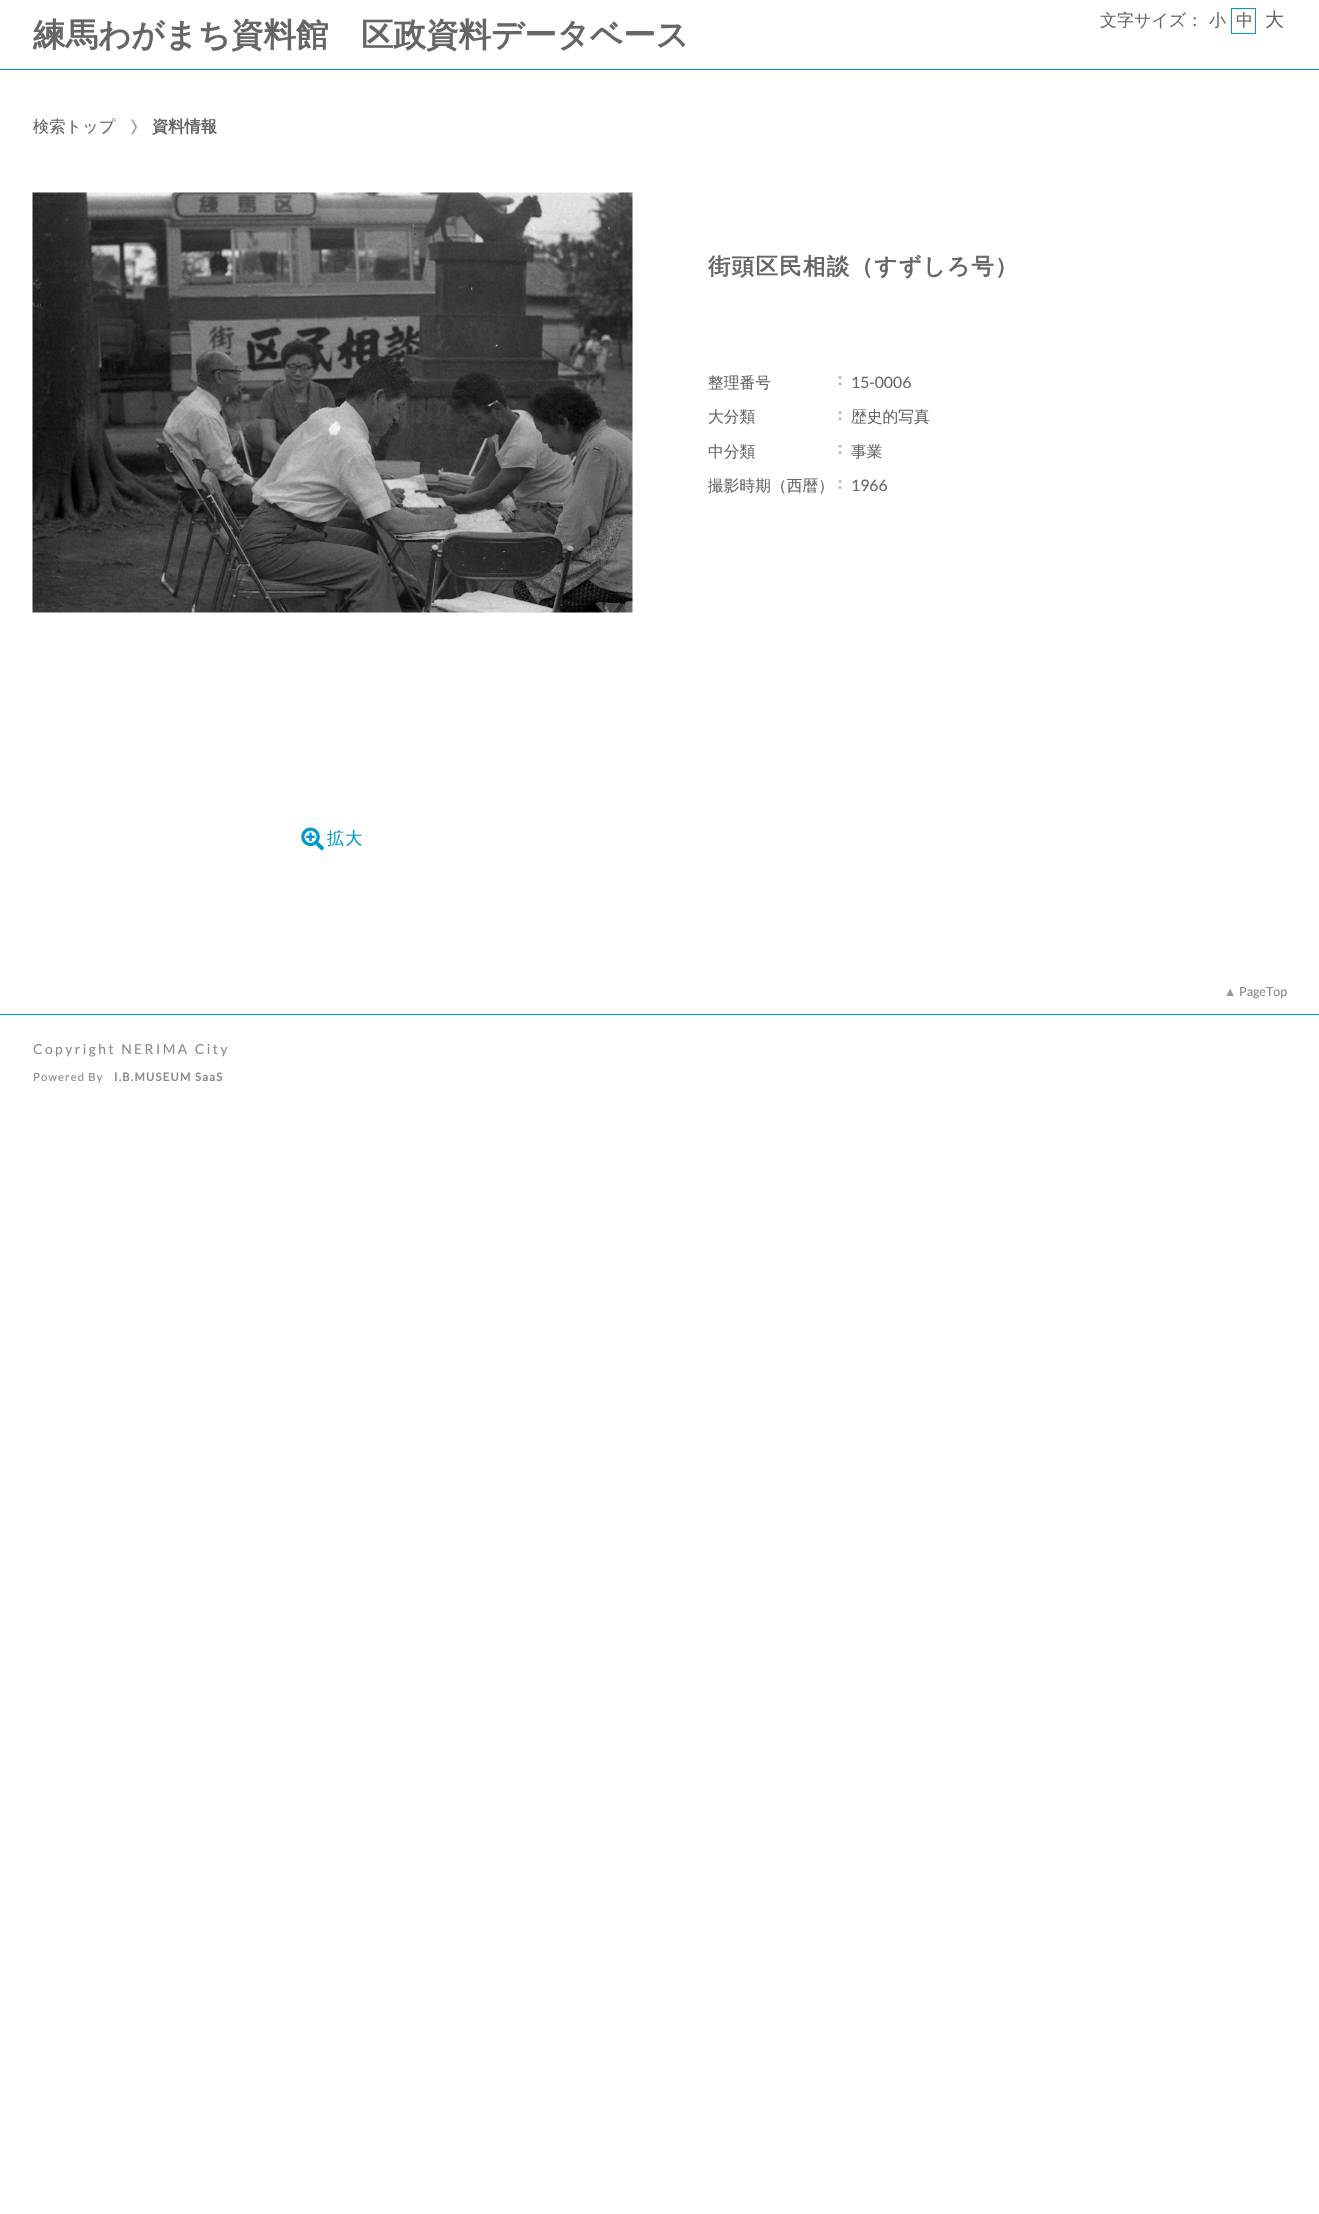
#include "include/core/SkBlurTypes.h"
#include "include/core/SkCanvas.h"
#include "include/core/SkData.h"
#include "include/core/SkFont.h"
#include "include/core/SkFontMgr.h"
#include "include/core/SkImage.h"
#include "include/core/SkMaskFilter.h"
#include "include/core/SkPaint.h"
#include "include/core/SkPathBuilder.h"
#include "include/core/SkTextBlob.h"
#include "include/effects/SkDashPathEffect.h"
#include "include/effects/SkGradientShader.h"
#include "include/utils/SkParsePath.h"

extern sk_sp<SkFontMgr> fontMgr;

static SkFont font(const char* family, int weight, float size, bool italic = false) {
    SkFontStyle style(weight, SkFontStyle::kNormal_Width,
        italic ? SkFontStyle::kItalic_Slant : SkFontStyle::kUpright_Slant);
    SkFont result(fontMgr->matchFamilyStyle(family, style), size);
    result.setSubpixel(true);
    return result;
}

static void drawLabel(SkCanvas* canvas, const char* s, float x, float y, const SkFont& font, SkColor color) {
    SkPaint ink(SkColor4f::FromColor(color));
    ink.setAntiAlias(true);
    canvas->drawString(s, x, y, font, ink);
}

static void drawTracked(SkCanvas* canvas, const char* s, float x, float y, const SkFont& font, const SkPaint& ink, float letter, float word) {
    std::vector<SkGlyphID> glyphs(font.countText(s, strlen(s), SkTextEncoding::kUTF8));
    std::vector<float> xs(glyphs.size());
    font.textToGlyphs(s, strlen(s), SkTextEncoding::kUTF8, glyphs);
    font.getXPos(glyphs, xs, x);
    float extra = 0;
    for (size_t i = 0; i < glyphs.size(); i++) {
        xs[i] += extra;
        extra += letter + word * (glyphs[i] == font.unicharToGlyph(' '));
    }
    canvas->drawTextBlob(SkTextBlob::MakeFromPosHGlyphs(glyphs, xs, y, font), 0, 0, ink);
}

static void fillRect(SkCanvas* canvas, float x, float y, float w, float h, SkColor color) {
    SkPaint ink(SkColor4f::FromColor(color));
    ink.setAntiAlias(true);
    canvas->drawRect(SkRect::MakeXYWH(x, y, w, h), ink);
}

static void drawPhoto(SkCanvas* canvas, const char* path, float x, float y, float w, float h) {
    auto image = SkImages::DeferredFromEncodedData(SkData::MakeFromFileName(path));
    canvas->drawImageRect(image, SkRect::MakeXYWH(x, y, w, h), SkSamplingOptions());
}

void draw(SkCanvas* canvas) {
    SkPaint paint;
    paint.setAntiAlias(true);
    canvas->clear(0xFFFFFFFF);
    SkFont font1 = font("WenQuanYi Zen Hei", 700, 32.5f);
    drawLabel(canvas, "練馬わがまち資料館　区政資料データベース", 33, 46, font1, 0xFF666666);
    SkFont font2 = font("WenQuanYi Zen Hei", 500, 17);
    drawLabel(canvas, "文字サイズ：", 1100, 26, font2, 0xFF666666);
    drawLabel(canvas, "小", 1209, 26, font2, 0xFF666666);
    paint.setStroke(true);
    paint.setStrokeWidth(1);
    paint.setColor(0xFF0099CC);
    canvas->drawRect(SkRect::MakeXYWH(1231.5f, 8.5f, 24, 25), paint);
    drawLabel(canvas, "中", 1236, 26, font2, 0xFF666666);
    SkFont font3 = font("WenQuanYi Zen Hei", 500, 19);
    drawLabel(canvas, "大", 1265, 26, font3, 0xFF666666);
    fillRect(canvas, 0, 69, 1319, 1, 0xFF0099CC);
    fillRect(canvas, 0, 1014, 1319, 1, 0xFF0099CC);
    SkFont font4 = font("WenQuanYi Zen Hei", 500, 16.25f);
    drawLabel(canvas, "検索トップ", 33, 132, font4, 0xFF666666);
    drawPhoto(canvas, "assets/img1.png", 131, 118, 7, 18);
    SkFont font5 = font("WenQuanYi Zen Hei", 700, 16.25f);
    drawLabel(canvas, "資料情報", 152, 132, font5, 0xFF666666);
    SkFont font6 = font("WenQuanYi Zen Hei", 700, 22.5f);
    paint.setStroke(false);
    paint.setColor(0xFF666666);
    drawTracked(canvas, "街頭区民相談（すずしろ号）", 708, 274, font6, paint, 1.25f, 0);
    SkFont font7 = font("WenQuanYi Zen Hei", 500, 15.75f);
    drawLabel(canvas, "整理番号", 708, 388, font7, 0xFF666666);
    drawPhoto(canvas, "assets/img2.png", 838, 376, 4, 10);
    SkFont font8 = font("Lato", 400, 15.75f);
    drawLabel(canvas, "15-0006", 851, 388, font8, 0xFF666666);
    drawLabel(canvas, "大分類", 708, 422, font7, 0xFF666666);
    drawPhoto(canvas, "assets/img2.png", 838, 411, 4, 10);
    drawLabel(canvas, "歴史的写真", 851, 422, font7, 0xFF666666);
    drawLabel(canvas, "中分類", 708, 457, font7, 0xFF666666);
    drawPhoto(canvas, "assets/img3.png", 838, 445, 4, 9);
    drawLabel(canvas, "事業", 851, 457, font7, 0xFF666666);
    drawLabel(canvas, "撮影時期（西暦）", 708, 491, font7, 0xFF666666);
    drawPhoto(canvas, "assets/img3.png", 838, 480, 4, 9);
    drawLabel(canvas, "1966", 851, 491, font8, 0xFF666666);
    drawPhoto(canvas, "assets/img4.png", 32, 192, 601, 421);
    drawPhoto(canvas, "assets/img5.png", 301, 827, 23, 24);
    paint.setColor(0xFF0099CC);
    drawTracked(canvas, "拡大", 327, 844, font2, paint, 1.25f, 0);
    SkFont font9 = font("Liberation Sans", 400, 12.5f);
    drawLabel(canvas, "▲", 1224, 996, font9, 0xFF999999);
    SkFont font10 = font("Lato", 400, 12.5f);
    drawLabel(canvas, "PageTop", 1239, 996, font10, 0xFF888888);
    SkFont font11 = font("Lato", 400, 13.75f);
    paint.setColor(0xFF888888);
    drawTracked(canvas, "Copyright NERIMA City", 33, 1054, font11, paint, 2.5f, 0);
    SkFont font12 = font("Lato", 400, 11.25f);
    drawTracked(canvas, "Powered By", 33, 1081, font12, paint, 1.1f, 0);
    SkFont font13 = font("Lato", 700, 11.25f);
    drawTracked(canvas, "I.B.MUSEUM SaaS", 114, 1081, font13, paint, 1.25f, 0);
}
